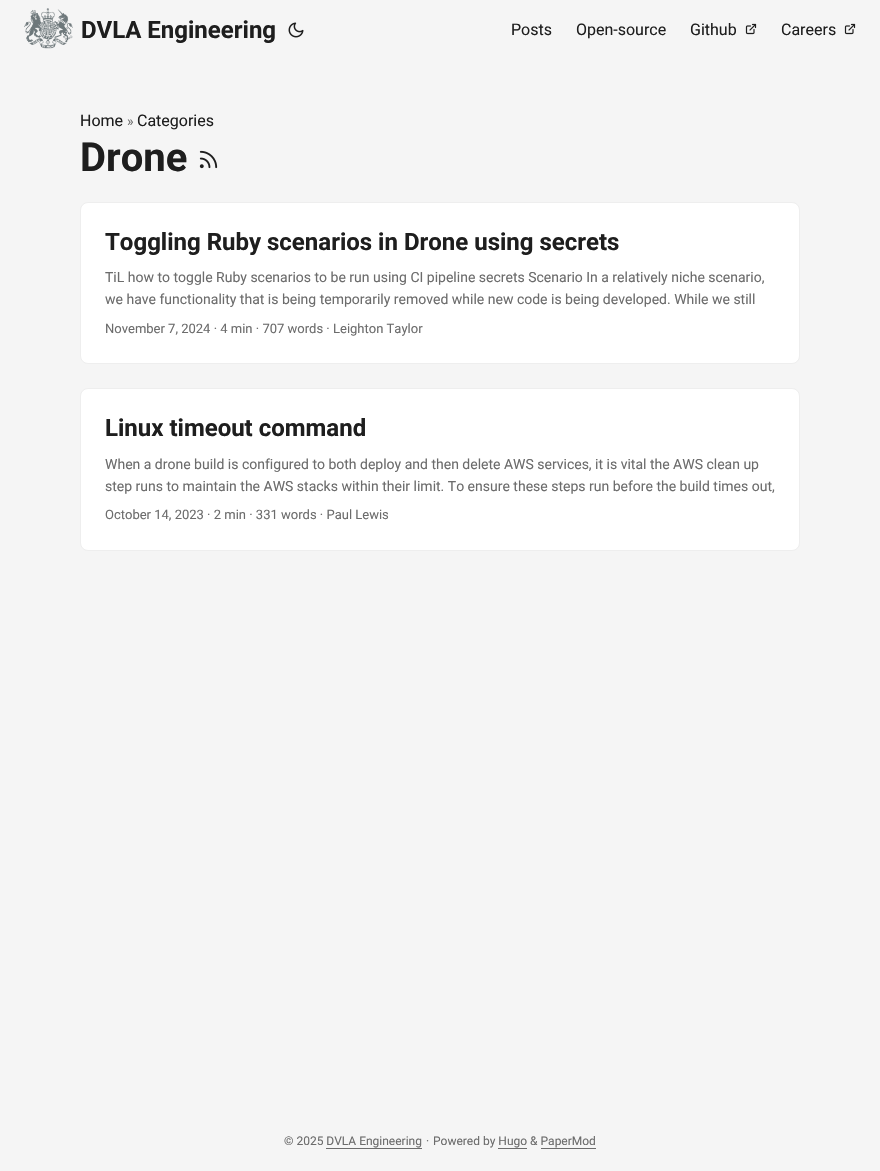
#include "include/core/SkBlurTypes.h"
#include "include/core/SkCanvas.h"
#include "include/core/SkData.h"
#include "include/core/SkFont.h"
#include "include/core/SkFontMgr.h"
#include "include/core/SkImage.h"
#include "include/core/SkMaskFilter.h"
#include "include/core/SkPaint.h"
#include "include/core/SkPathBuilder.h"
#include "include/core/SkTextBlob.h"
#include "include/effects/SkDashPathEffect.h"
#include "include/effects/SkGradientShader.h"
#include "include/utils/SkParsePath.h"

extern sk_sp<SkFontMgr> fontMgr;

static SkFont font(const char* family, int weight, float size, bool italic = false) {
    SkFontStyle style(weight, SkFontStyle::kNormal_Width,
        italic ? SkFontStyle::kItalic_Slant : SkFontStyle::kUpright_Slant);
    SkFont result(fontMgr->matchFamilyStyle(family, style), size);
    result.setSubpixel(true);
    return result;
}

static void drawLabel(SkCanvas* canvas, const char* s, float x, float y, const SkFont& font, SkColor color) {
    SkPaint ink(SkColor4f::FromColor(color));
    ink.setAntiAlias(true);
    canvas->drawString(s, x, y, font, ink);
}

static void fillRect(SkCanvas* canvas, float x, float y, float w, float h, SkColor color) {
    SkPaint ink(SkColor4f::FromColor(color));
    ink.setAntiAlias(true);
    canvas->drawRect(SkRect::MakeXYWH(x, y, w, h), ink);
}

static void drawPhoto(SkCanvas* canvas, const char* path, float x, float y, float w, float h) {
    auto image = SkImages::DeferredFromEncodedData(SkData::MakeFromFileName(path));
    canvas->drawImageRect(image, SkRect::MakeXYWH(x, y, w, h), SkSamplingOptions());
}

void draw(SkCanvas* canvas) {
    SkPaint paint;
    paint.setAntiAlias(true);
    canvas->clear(0xFFF5F5F5);
    drawPhoto(canvas, "assets/img1.png", 24, 8, 49, 41);
    SkFont font1 = font("Roboto", 700, 24);
    drawLabel(canvas, "DVLA Engineering", 81, 38, font1, 0xFF1E1E1E);
    drawPhoto(canvas, "assets/img2.png", 288, 22, 16, 16);
    SkFont font2 = font("Roboto", 400, 16);
    drawLabel(canvas, "Posts", 511, 35, font2, 0xFF1E1E1E);
    drawLabel(canvas, "Open-source", 576, 35, font2, 0xFF1E1E1E);
    drawLabel(canvas, "Github", 690, 35, font2, 0xFF1E1E1E);
    drawPhoto(canvas, "assets/img3.png", 745, 23, 12, 12);
    drawLabel(canvas, "Careers", 781, 35, font2, 0xFF1E1E1E);
    drawPhoto(canvas, "assets/img3.png", 844, 23, 12, 12);
    drawLabel(canvas, "Home", 80, 126, font2, 0xFF1E1E1E);
    SkFont font3 = font("Roboto", 400, 14);
    drawLabel(canvas, "»", 127, 126, font3, 0xFF6C6C6C);
    drawLabel(canvas, "Categories", 137, 126, font2, 0xFF1E1E1E);
    SkFont font4 = font("Roboto", 700, 40);
    drawLabel(canvas, "Drone", 80, 171, font4, 0xFF1E1E1E);
    drawPhoto(canvas, "assets/img4.png", 199, 150, 19, 19);
    paint.setColor(0xFFFFFFFF);
    canvas->drawRoundRect(SkRect::MakeXYWH(80.5f, 202.5f, 719, 161), 7.5f, 7.5f, paint);
    paint.setStroke(true);
    paint.setStrokeWidth(1);
    paint.setColor(0xFFEEEEEE);
    canvas->drawRoundRect(SkRect::MakeXYWH(80.5f, 202.5f, 719, 161), 7.5f, 7.5f, paint);
    drawLabel(canvas, "Toggling Ruby scenarios in Drone using secrets", 105, 250, font1, 0xFF1E1E1E);
    drawLabel(canvas, "TiL how to toggle Ruby scenarios to be run using CI pipeline secrets Scenario In a relatively niche scenario,", 105, 282, font3, 0xFF6C6C6C);
    drawLabel(canvas, "we have functionality that is being temporarily removed while new code is being developed. While we still", 105, 304, font3, 0xFF6C6C6C);
    SkFont font5 = font("Roboto", 400, 13);
    drawLabel(canvas, "November 7, 2024 · 4 min · 707 words · Leighton Taylor", 105, 333, font5, 0xFF6C6C6C);
    paint.setStroke(false);
    paint.setColor(0xFFFFFFFF);
    canvas->drawRoundRect(SkRect::MakeXYWH(80.5f, 388.5f, 719, 162), 7.5f, 7.5f, paint);
    paint.setStroke(true);
    paint.setColor(0xFFEEEEEE);
    canvas->drawRoundRect(SkRect::MakeXYWH(80.5f, 388.5f, 719, 162), 7.5f, 7.5f, paint);
    drawLabel(canvas, "Linux timeout command", 105, 436, font1, 0xFF1E1E1E);
    drawLabel(canvas, "When a drone build is configured to both deploy and then delete AWS services, it is vital the AWS clean up", 105, 469, font3, 0xFF6C6C6C);
    drawLabel(canvas, "step runs to maintain the AWS stacks within their limit. To ensure these steps run before the build times out,", 105, 491, font3, 0xFF6C6C6C);
    drawLabel(canvas, "October 14, 2023 · 2 min · 331 words · Paul Lewis", 105, 519, font5, 0xFF6C6C6C);
    SkFont font6 = font("Roboto", 400, 12);
    drawLabel(canvas, "© 2025 DVLA Engineering", 284, 1145, font6, 0xFF6C6C6C);
    fillRect(canvas, 326, 1148, 96, 1, 0xFF6C6C6C);
    drawLabel(canvas, "·", 426, 1145, font6, 0xFF6C6C6C);
    drawLabel(canvas, "Powered by Hugo & PaperMod", 433, 1145, font6, 0xFF6C6C6C);
    fillRect(canvas, 498, 1148, 29, 1, 0xFF6C6C6C);
    fillRect(canvas, 541, 1148, 55, 1, 0xFF6C6C6C);
}
